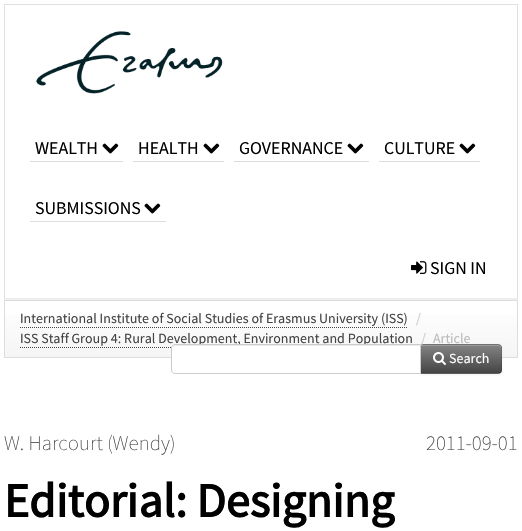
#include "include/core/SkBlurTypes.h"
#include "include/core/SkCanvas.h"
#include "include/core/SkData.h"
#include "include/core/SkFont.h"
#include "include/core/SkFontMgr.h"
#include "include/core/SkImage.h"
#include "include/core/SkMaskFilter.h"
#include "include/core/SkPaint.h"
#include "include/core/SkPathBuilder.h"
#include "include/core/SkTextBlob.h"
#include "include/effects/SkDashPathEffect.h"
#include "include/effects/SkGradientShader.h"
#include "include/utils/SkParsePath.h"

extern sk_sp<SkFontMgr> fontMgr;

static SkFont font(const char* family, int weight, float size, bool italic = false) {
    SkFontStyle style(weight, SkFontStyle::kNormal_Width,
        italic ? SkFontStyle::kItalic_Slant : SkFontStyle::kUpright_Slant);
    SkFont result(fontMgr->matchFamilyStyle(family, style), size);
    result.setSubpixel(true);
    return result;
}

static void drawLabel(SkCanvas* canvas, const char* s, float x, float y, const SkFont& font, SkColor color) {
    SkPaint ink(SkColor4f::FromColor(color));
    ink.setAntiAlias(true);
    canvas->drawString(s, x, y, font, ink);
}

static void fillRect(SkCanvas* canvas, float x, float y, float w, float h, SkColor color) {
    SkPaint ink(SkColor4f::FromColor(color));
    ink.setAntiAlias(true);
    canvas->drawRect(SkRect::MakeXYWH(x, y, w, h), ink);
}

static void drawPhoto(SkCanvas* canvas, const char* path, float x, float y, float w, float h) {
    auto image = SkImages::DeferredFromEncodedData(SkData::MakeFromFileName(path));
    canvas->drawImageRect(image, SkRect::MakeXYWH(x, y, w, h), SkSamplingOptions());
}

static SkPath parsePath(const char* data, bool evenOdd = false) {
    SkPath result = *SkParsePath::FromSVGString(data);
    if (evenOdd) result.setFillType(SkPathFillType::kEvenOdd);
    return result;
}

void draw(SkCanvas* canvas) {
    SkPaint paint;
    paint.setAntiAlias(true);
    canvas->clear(0xFFFFFFFF);
    fillRect(canvas, 4, 4, 514, 1, 0xFFE0E0E0);
    paint.setColor(0xFFE0E0E0);
    canvas->drawPath(parsePath("M518 4V300L517 298V5Z"), paint);
    paint.setColor(0xFFEEEEEE);
    canvas->drawPath(parsePath("M518 300H4L5 298H517Z"), paint);
    paint.setColor(0xFFE0E0E0);
    canvas->drawPath(parsePath("M4 300V4L5 5V298Z"), paint);
    drawPhoto(canvas, "assets/img1.png", 36, 31, 187, 63);
    fillRect(canvas, 30, 161, 93, 1, 0xFFDDDDDD);
    SkFont font1 = font("Source Sans Pro", 400, 18);
    drawLabel(canvas, "WEALTH", 35, 154, font1, 0xFF000000);
    drawPhoto(canvas, "assets/img2.png", 102, 143, 17, 11);
    fillRect(canvas, 133, 161, 91, 1, 0xFFDDDDDD);
    drawLabel(canvas, "HEALTH", 138, 154, font1, 0xFF000000);
    drawPhoto(canvas, "assets/img2.png", 203, 143, 17, 11);
    fillRect(canvas, 234, 161, 135, 1, 0xFFDDDDDD);
    drawLabel(canvas, "GOVERNANCE", 239, 154, font1, 0xFF000000);
    drawPhoto(canvas, "assets/img2.png", 347, 143, 17, 11);
    fillRect(canvas, 379, 161, 101, 1, 0xFFDDDDDD);
    drawLabel(canvas, "CULTURE", 384, 154, font1, 0xFF000000);
    drawPhoto(canvas, "assets/img2.png", 459, 143, 17, 11);
    fillRect(canvas, 30, 221, 136, 1, 0xFFDDDDDD);
    drawLabel(canvas, "SUBMISSIONS", 35, 214, font1, 0xFF000000);
    drawPhoto(canvas, "assets/img2.png", 144, 203, 17, 11);
    drawPhoto(canvas, "assets/img3.png", 411, 261, 16, 13);
    drawLabel(canvas, "SIGN IN", 430, 274, font1, 0xFF000000);
    {
        const SkColor colors[] = {0xFFFFFFFF, 0xFFF5F5F5};
        const float stops[] = {0, 1};
        const SkPoint ends[] = {{261, 301}, {261, 357}};
        paint.setShader(SkGradientShader::MakeLinear(ends, colors, stops, 2, SkTileMode::kClamp));
        paint.setAlpha(255);
    }
    canvas->drawRect(SkRect::MakeXYWH(5, 315, 512, 42), paint);
    paint.setStroke(true);
    paint.setStrokeWidth(1);
    paint.setShader(nullptr);
    paint.setColor(0xFFDDDDDD);
    canvas->drawRect(SkRect::MakeXYWH(4.5f, 300.5f, 513, 57), paint);
    SkFont font2 = font("Source Sans Pro", 400, 14);
    drawLabel(canvas, "International Institute of Social Studies of Erasmus University (ISS)", 20, 323, font2, 0xFF444444);
    paint.setColor(0xFF444444);
    paint.setPathEffect(SkDashPathEffect::Make({{1, 1}}, 0));
    canvas->drawPath(parsePath("M20 327.5H408"), paint);
    paint.setPathEffect(nullptr);
    drawLabel(canvas, "/", 416, 323, font2, 0xFFCCCCCC);
    drawLabel(canvas, "ISS Staff Group 4: Rural Development, Environment and Population", 20, 343, font2, 0xFF444444);
    paint.setPathEffect(SkDashPathEffect::Make({{1, 1}}, 0));
    canvas->drawPath(parsePath("M20 347.5H413"), paint);
    paint.setPathEffect(nullptr);
    paint.setStroke(false);
    paint.setColor(0x0D000000);
    paint.setMaskFilter(SkMaskFilter::MakeBlur(kNormal_SkBlurStyle, 1));
    canvas->drawRoundRect(SkRect::MakeXYWH(420, 345, 82, 30), 4, 4, paint);
    paint.setMaskFilter(nullptr);
    paint.setColor(0xFF7F7F7F);
    canvas->drawPath(parsePath("M420 344H498C500 344 502 346 502 348V370C502 372 500 374 498 374H420Z"), paint);
    canvas->save();
    canvas->clipPath(parsePath("M420 344H498C500 344 502 346 502 348V370C502 372 500 374 498 374H420Z"), true);
    {
        const SkColor colors[] = {0xFF848484, 0xFF444444};
        const float stops[] = {0, 1};
        const SkPoint ends[] = {{461, 345}, {461, 373}};
        paint.setShader(SkGradientShader::MakeLinear(ends, colors, stops, 2, SkTileMode::kClamp));
        paint.setAlpha(255);
    }
    canvas->drawRect(SkRect::MakeXYWH(421, 345, 81, 28), paint);
    canvas->restore();
    paint.setShader(nullptr);
    paint.setColor(0xFF9C9C9C);
    canvas->drawPath(parsePath("M421 346H498C500 346 501 347 501 349V348C501 346 500 345 498 345H421Z"), paint);
    paint.setColor(0x1A000000);
    canvas->drawPath(parsePath("M420 344L421 345H499L500 346L501 345L498 344Z"), paint);
    drawLabel(canvas, "/", 421, 343, font2, 0xFFCCCCCC);
    drawLabel(canvas, "Article", 433, 343, font2, 0xFFBBBBBB);
    canvas->drawPath(parsePath("M502 370V348C502 347 501.5 346 501 345L500 346C501 346 501 347 501 348V370C501 371 501 372 500 372L501 373C501.5 372 502 371 502 370Z"), paint);
    paint.setColor(0x40000000);
    canvas->drawPath(parsePath("M498 374L501 373L500 372L499 373H421L420 374Z"), paint);
    paint.setColor(0xFFFFFFFF);
    canvas->drawPath(parsePath("M175 344H421V374H175C173 374 171 372 171 370V348C171 346 173 344 175 344Z"), paint);
    paint.setColor(0xFFECECEC);
    canvas->drawPath(parsePath("M175 346H420V345H175C173 345 172 347 172 349C172 347 173 346 175 346Z"), paint);
    paint.setStroke(true);
    paint.setColor(0xFFCCCCCC);
    canvas->drawPath(parsePath("M175 344.5H420.5V373.5H175C173 373.5 171.5 372 171.5 370V348C171.5 346 173 344.5 175 344.5Z"), paint);
    drawPhoto(canvas, "assets/img4.png", 433, 352, 13, 13);
    drawLabel(canvas, "Search", 449, 363, font2, 0xFFFFFFFF);
    SkFont font3 = font("Source Sans Pro", 200, 21);
    drawLabel(canvas, "W. Harcourt (Wendy)", 4, 450, font3, 0xFF444444);
    drawLabel(canvas, "2011-09-01", 426, 450, font3, 0xFF444444);
    SkFont font4 = font("Source Sans Pro", 700, 48);
    drawLabel(canvas, "Editorial: Designing", 4, 517, font4, 0xFF000000);
}
